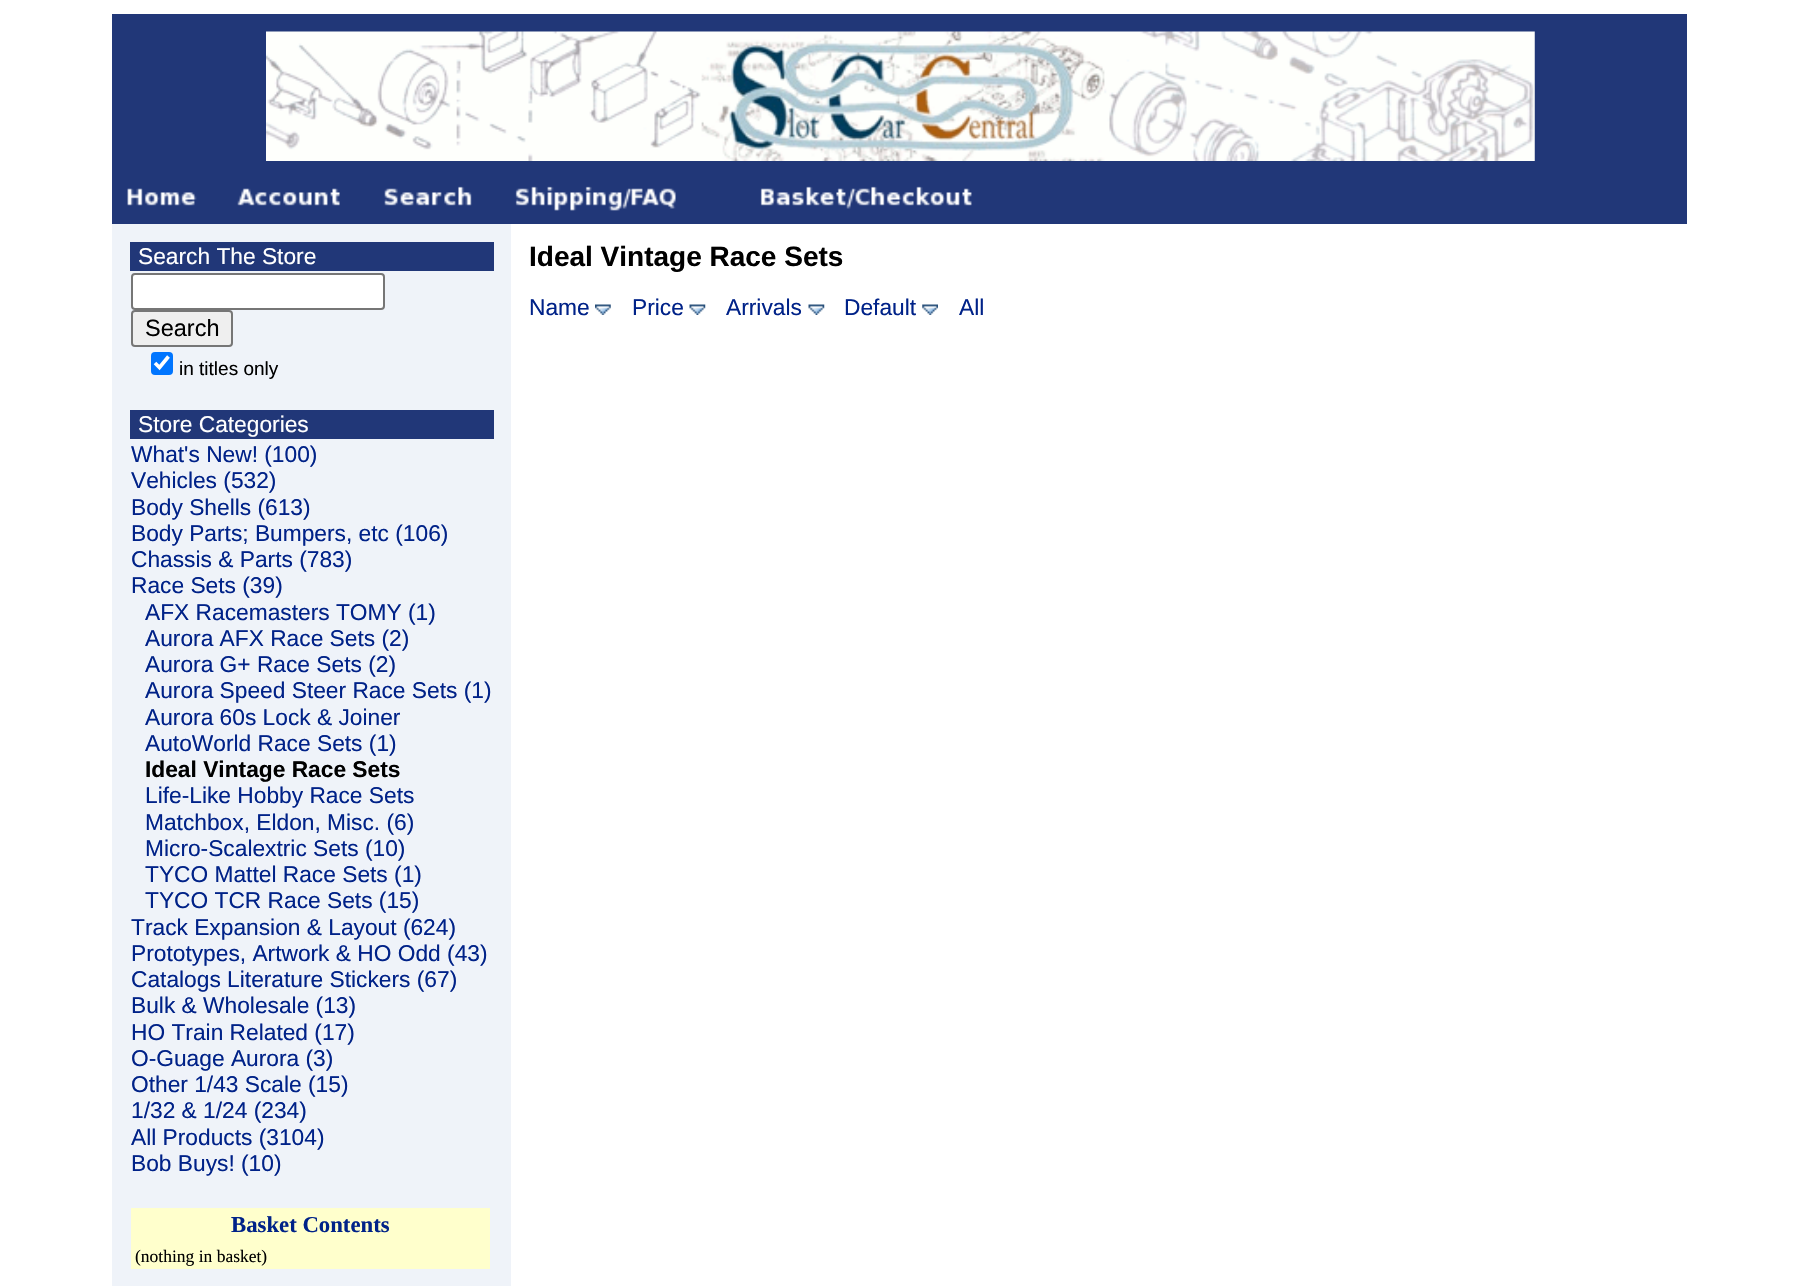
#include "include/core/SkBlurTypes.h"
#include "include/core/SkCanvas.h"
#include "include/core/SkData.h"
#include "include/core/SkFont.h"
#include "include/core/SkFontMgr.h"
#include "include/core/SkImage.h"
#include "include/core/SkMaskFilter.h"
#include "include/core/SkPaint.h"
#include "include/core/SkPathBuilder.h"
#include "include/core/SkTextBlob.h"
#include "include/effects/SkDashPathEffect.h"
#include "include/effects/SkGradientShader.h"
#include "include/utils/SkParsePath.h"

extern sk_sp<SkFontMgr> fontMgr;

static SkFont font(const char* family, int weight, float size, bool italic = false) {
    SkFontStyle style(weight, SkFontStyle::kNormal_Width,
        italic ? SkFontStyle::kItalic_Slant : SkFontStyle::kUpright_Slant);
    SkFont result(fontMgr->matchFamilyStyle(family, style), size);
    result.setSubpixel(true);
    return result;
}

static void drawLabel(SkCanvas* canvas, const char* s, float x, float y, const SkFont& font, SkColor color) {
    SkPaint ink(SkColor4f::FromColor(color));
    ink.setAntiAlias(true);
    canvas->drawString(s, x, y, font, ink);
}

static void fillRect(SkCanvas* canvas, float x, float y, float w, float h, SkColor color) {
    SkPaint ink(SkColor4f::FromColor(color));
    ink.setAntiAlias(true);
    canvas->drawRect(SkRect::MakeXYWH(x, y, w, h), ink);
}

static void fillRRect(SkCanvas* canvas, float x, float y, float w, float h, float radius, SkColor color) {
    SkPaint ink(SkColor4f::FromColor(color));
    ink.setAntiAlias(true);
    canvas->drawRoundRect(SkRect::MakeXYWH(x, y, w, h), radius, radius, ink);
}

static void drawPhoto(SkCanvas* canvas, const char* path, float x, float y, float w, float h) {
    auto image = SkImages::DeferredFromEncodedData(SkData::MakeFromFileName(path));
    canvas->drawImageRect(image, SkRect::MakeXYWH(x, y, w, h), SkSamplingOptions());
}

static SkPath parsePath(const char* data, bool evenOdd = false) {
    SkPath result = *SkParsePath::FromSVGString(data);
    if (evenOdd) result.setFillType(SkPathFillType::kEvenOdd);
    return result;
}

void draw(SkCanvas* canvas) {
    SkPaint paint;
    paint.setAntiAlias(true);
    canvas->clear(0xFFFFFFFF);
    fillRect(canvas, 112, 14, 1575, 210, 0xFF213778);
    drawPhoto(canvas, "assets/img1.png", 266, 31, 1269, 130);
    drawPhoto(canvas, "assets/img2.png", 127, 188, 70, 18);
    drawPhoto(canvas, "assets/img3.png", 237, 188, 103, 18);
    drawPhoto(canvas, "assets/img4.png", 384, 186, 88, 20);
    drawPhoto(canvas, "assets/img5.png", 515, 186, 161, 25);
    drawPhoto(canvas, "assets/img6.png", 760, 186, 212, 23);
    fillRect(canvas, 112, 224, 399, 1062, 0xFFEFF3F9);
    fillRect(canvas, 130, 242, 364, 29, 0xFF213778);
    SkFont font1 = font("Liberation Sans", 400, 22.75f);
    drawLabel(canvas, "Search The Store", 138, 264, font1, 0xFFFFFFFF);
    paint.setColor(0xFFFFFFFF);
    canvas->drawRoundRect(SkRect::MakeXYWH(132, 274, 252, 35), 3, 3, paint);
    paint.setStroke(true);
    paint.setStrokeWidth(2);
    paint.setColor(0xFF767676);
    canvas->drawRoundRect(SkRect::MakeXYWH(132, 274, 252, 35), 3, 3, paint);
    paint.setStroke(false);
    paint.setColor(0xFFEFEFEF);
    canvas->drawRoundRect(SkRect::MakeXYWH(132, 311, 100, 35), 3, 3, paint);
    paint.setStroke(true);
    paint.setColor(0xFF767676);
    canvas->drawRoundRect(SkRect::MakeXYWH(132, 311, 100, 35), 3, 3, paint);
    SkFont font2 = font("Liberation Sans", 400, 23.5f);
    drawLabel(canvas, "Search", 145, 336, font2, 0xFF000000);
    fillRRect(canvas, 151, 352, 22, 23, 4, 0xFF0075FF);
    paint.setStrokeWidth(3.6f);
    paint.setColor(0xFFFFFFFF);
    canvas->drawPath(parsePath("M155 363L159.5 367.5L168.5 356.5"), paint);
    SkFont font3 = font("Liberation Sans", 400, 19);
    drawLabel(canvas, "in titles only", 179, 375, font3, 0xFF000000);
    fillRect(canvas, 130, 410, 364, 29, 0xFF213778);
    drawLabel(canvas, "Store Categories", 138, 432, font1, 0xFFFFFFFF);
    drawLabel(canvas, "What's New! (100)", 131, 462, font1, 0xFF002288);
    drawLabel(canvas, "Vehicles (532)", 131, 488, font1, 0xFF002288);
    drawLabel(canvas, "Body Shells (613)", 131, 515, font1, 0xFF002288);
    drawLabel(canvas, "Body Parts; Bumpers, etc (106)", 131, 541, font1, 0xFF002288);
    drawLabel(canvas, "Chassis & Parts (783)", 131, 567, font1, 0xFF002288);
    drawLabel(canvas, "Race Sets (39)", 131, 593, font1, 0xFF002288);
    drawLabel(canvas, "AFX Racemasters TOMY (1)", 145, 620, font1, 0xFF002288);
    drawLabel(canvas, "Aurora AFX Race Sets (2)", 145, 646, font1, 0xFF002288);
    drawLabel(canvas, "Aurora G+ Race Sets (2)", 145, 672, font1, 0xFF002288);
    drawLabel(canvas, "Aurora Speed Steer Race Sets (1)", 145, 698, font1, 0xFF002288);
    drawLabel(canvas, "Aurora 60s Lock & Joiner", 145, 725, font1, 0xFF002288);
    drawLabel(canvas, "AutoWorld Race Sets (1)", 145, 751, font1, 0xFF002288);
    SkFont font4 = font("Liberation Sans", 700, 22.75f);
    drawLabel(canvas, "Ideal Vintage Race Sets", 145, 777, font4, 0xFF000000);
    drawLabel(canvas, "Life-Like Hobby Race Sets", 145, 803, font1, 0xFF002288);
    drawLabel(canvas, "Matchbox, Eldon, Misc. (6)", 145, 830, font1, 0xFF002288);
    drawLabel(canvas, "Micro-Scalextric Sets (10)", 145, 856, font1, 0xFF002288);
    drawLabel(canvas, "TYCO Mattel Race Sets (1)", 145, 882, font1, 0xFF002288);
    drawLabel(canvas, "TYCO TCR Race Sets (15)", 145, 908, font1, 0xFF002288);
    drawLabel(canvas, "Track Expansion & Layout (624)", 131, 935, font1, 0xFF002288);
    drawLabel(canvas, "Prototypes, Artwork & HO Odd (43)", 131, 961, font1, 0xFF002288);
    drawLabel(canvas, "Catalogs Literature Stickers (67)", 131, 987, font1, 0xFF002288);
    drawLabel(canvas, "Bulk & Wholesale (13)", 131, 1013, font1, 0xFF002288);
    drawLabel(canvas, "HO Train Related (17)", 131, 1040, font1, 0xFF002288);
    drawLabel(canvas, "O-Guage Aurora (3)", 131, 1066, font1, 0xFF002288);
    drawLabel(canvas, "Other 1/43 Scale (15)", 131, 1092, font1, 0xFF002288);
    drawLabel(canvas, "1/32 & 1/24 (234)", 131, 1118, font1, 0xFF002288);
    drawLabel(canvas, "All Products (3104)", 131, 1145, font1, 0xFF002288);
    drawLabel(canvas, "Bob Buys! (10)", 131, 1171, font1, 0xFF002288);
    fillRect(canvas, 131, 1208, 359, 61, 0xFFFFFFCC);
    SkFont font5 = font("Liberation Serif", 700, 22.75f);
    drawLabel(canvas, "Basket Contents", 231, 1232, font5, 0xFF002288);
    SkFont font6 = font("Liberation Serif", 400, 17.5f);
    drawLabel(canvas, "(nothing in basket)", 135, 1262, font6, 0xFF000000);
    SkFont font7 = font("Liberation Sans", 700, 28);
    drawLabel(canvas, "Ideal Vintage Race Sets", 529, 266, font7, 0xFF000000);
    drawLabel(canvas, "Name", 529, 315, font1, 0xFF002288);
    drawPhoto(canvas, "assets/img7.png", 595, 304, 16, 11);
    drawLabel(canvas, "Price", 632, 315, font1, 0xFF002288);
    drawPhoto(canvas, "assets/img8.png", 689, 304, 17, 11);
    drawLabel(canvas, "Arrivals", 726, 315, font1, 0xFF002288);
    drawPhoto(canvas, "assets/img9.png", 808, 304, 17, 11);
    drawLabel(canvas, "Default", 844, 315, font1, 0xFF002288);
    drawPhoto(canvas, "assets/img10.png", 922, 304, 16, 11);
    drawLabel(canvas, "All", 959, 315, font1, 0xFF002288);
}
